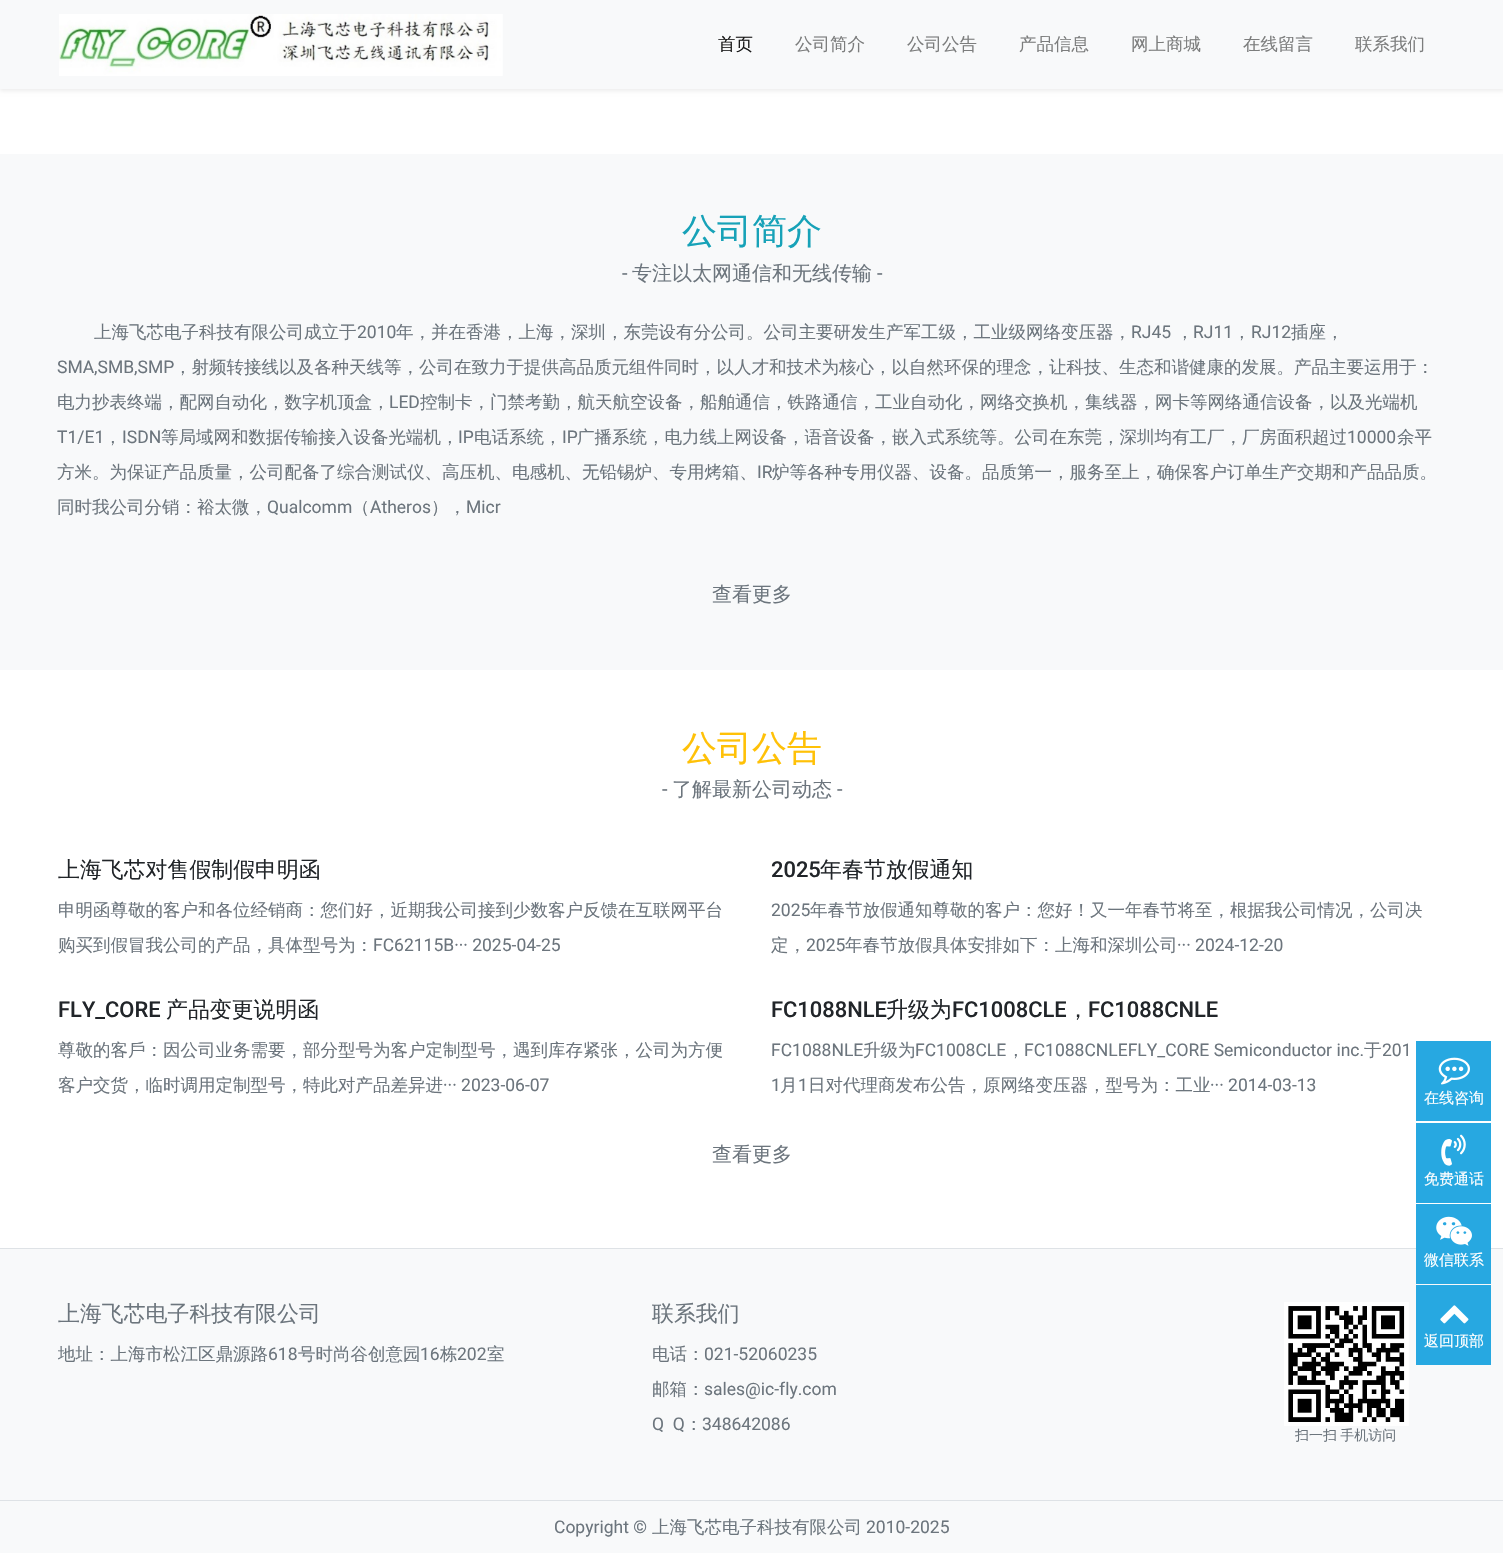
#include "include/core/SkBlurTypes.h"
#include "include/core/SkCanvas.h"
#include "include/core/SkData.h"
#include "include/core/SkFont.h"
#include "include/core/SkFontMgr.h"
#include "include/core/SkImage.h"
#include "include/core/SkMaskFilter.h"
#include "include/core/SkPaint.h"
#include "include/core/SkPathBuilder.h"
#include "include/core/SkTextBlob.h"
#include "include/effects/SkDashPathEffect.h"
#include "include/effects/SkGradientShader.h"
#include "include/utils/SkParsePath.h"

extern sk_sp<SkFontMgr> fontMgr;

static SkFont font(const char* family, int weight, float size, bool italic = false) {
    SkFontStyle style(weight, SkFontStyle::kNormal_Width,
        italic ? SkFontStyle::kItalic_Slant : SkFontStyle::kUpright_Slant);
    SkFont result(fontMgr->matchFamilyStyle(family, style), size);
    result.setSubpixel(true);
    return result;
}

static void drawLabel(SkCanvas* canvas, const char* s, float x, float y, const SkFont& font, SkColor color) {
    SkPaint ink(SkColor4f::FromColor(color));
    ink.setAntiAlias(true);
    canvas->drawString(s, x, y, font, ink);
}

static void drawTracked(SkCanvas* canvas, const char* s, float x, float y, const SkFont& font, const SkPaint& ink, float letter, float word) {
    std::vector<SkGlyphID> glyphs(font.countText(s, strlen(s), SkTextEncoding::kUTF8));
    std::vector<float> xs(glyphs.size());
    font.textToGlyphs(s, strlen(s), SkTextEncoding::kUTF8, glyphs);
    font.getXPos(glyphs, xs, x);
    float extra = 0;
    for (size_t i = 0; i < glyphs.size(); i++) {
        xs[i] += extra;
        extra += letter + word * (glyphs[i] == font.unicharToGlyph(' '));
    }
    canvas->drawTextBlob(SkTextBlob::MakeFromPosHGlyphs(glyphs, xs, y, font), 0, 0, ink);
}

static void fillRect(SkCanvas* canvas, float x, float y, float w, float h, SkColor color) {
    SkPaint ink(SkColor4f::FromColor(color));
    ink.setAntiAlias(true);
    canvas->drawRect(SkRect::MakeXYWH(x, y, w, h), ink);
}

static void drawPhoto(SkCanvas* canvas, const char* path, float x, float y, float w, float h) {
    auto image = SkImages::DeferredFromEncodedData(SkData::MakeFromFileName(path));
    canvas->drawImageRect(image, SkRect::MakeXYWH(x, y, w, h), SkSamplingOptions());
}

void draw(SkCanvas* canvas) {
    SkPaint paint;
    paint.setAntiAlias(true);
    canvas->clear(0xFFFFFFFF);
    paint.setColor(0x12000000);
    paint.setMaskFilter(SkMaskFilter::MakeBlur(kNormal_SkBlurStyle, 2));
    canvas->drawRect(SkRect::MakeXYWH(0, 3, 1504, 88), paint);
    paint.setMaskFilter(nullptr);
    fillRect(canvas, 0, 0, 1503, 89, 0xFFF8F9FA);
    drawPhoto(canvas, "assets/img1.png", 59, 14, 444, 62);
    SkFont font1 = font("WenQuanYi Zen Hei", 500, 17.5f);
    drawLabel(canvas, "首页", 718, 50, font1, 0xFF191919);
    drawLabel(canvas, "公司简介", 795, 50, font1, 0xFF7C7D7D);
    drawLabel(canvas, "公司公告", 907, 50, font1, 0xFF7C7D7D);
    drawLabel(canvas, "产品信息", 1019, 50, font1, 0xFF7C7D7D);
    drawLabel(canvas, "网上商城", 1131, 50, font1, 0xFF7C7D7D);
    drawLabel(canvas, "在线留言", 1243, 50, font1, 0xFF7C7D7D);
    drawLabel(canvas, "联系我们", 1355, 50, font1, 0xFF7C7D7D);
    fillRect(canvas, 0, 154, 1503, 516, 0xFFF8F9FA);
    SkFont font2 = font("WenQuanYi Zen Hei", 500, 35);
    drawLabel(canvas, "公司简介", 682, 243, font2, 0xFF17A2B8);
    SkFont font3 = font("Roboto", 400, 20);
    drawLabel(canvas, "-", 622, 280, font3, 0xFF6C757D);
    SkFont font4 = font("WenQuanYi Zen Hei", 500, 20);
    drawLabel(canvas, "专注以太网通信和无线传输", 632, 280, font4, 0xFF6C757D);
    drawLabel(canvas, "-", 877, 280, font3, 0xFF6C757D);
    drawLabel(canvas, "上海飞芯电子科技有限公司成立于", 94, 338, font1, 0xFF6C757D);
    SkFont font5 = font("Roboto", 400, 17.5f);
    drawLabel(canvas, "2010", 357, 338, font5, 0xFF6C757D);
    drawLabel(canvas, "年，并在香港，上海，深圳，东莞设有分公司。公司主要研发生产军工级，工业级网络变压器，", 396, 338, font1, 0xFF6C757D);
    drawLabel(canvas, "RJ45", 1131, 338, font5, 0xFF6C757D);
    drawLabel(canvas, "，", 1176, 338, font1, 0xFF6C757D);
    drawLabel(canvas, "RJ11", 1193, 338, font5, 0xFF6C757D);
    drawLabel(canvas, "，", 1233, 338, font1, 0xFF6C757D);
    drawLabel(canvas, "RJ12", 1251, 338, font5, 0xFF6C757D);
    drawLabel(canvas, "插座，", 1291, 338, font1, 0xFF6C757D);
    drawLabel(canvas, "SMA,SMB,SMP", 57, 373, font5, 0xFF6C757D);
    drawLabel(canvas, "，射频转接线以及各种天线等，公司在致力于提供高品质元组件同时，以人才和技术为核心，以自然环保的理念，让科技、生态和谐健康的发展。产品主要运用于：", 174, 373, font1, 0xFF6C757D);
    drawLabel(canvas, "电力抄表终端，配网自动化，数字机顶盒，", 57, 408, font1, 0xFF6C757D);
    drawLabel(canvas, "LED", 389, 408, font5, 0xFF6C757D);
    drawLabel(canvas, "控制卡，门禁考勤，航天航空设备，船舶通信，铁路通信，工业自动化，网络交换机，集线器，网卡等网络通信设备，以及光端机", 420, 408, font1, 0xFF6C757D);
    drawLabel(canvas, "T1/E1", 57, 443, font5, 0xFF6C757D);
    drawLabel(canvas, "，", 104, 443, font1, 0xFF6C757D);
    drawLabel(canvas, "ISDN", 122, 443, font5, 0xFF6C757D);
    drawLabel(canvas, "等局域网和数据传输接入设备光端机，", 161, 443, font1, 0xFF6C757D);
    drawLabel(canvas, "IP", 458, 443, font5, 0xFF6C757D);
    drawLabel(canvas, "电话系统，", 474, 443, font1, 0xFF6C757D);
    drawLabel(canvas, "IP", 562, 443, font5, 0xFF6C757D);
    drawLabel(canvas, "广播系统，电力线上网设备，语音设备，嵌入式系统等。公司在东莞，深圳均有工厂，厂房面积超过", 577, 443, font1, 0xFF6C757D);
    drawLabel(canvas, "10000", 1347, 443, font5, 0xFF6C757D);
    drawLabel(canvas, "余平", 1397, 443, font1, 0xFF6C757D);
    drawLabel(canvas, "方米。为保证产品质量，公司配备了综合测试仪、高压机、电感机、无铅锡炉、专用烤箱、", 57, 478, font1, 0xFF6C757D);
    drawLabel(canvas, "IR", 757, 478, font5, 0xFF6C757D);
    drawLabel(canvas, "炉等各种专用仪器、设备。品质第一，服务至上，确保客户订单生产交期和产品品质。", 772, 478, font1, 0xFF6C757D);
    drawLabel(canvas, "同时我公司分销：裕太微，", 57, 513, font1, 0xFF6C757D);
    drawLabel(canvas, "Qualcomm", 267, 513, font5, 0xFF6C757D);
    drawLabel(canvas, "（", 352, 513, font1, 0xFF6C757D);
    drawLabel(canvas, "Atheros", 370, 513, font5, 0xFF6C757D);
    drawLabel(canvas, "），", 431, 513, font1, 0xFF6C757D);
    drawLabel(canvas, "Micr", 466, 513, font5, 0xFF6C757D);
    drawLabel(canvas, "查看更多", 712, 601, font4, 0xFF6C757D);
    drawLabel(canvas, "公司公告", 682, 760, font2, 0xFFFFC107);
    drawLabel(canvas, "-", 662, 796, font3, 0xFF6C757D);
    drawLabel(canvas, "了解最新公司动态", 672, 796, font4, 0xFF6C757D);
    drawLabel(canvas, "-", 837, 796, font3, 0xFF6C757D);
    SkFont font6 = font("WenQuanYi Zen Hei", 500, 21.9f);
    drawLabel(canvas, "上海飞芯对售假制假申明函", 58, 877, font6, 0xFF212529);
    drawLabel(canvas, "申明函尊敬的客户和各位经销商：您们好，近期我公司接到少数客户反馈在互联网平台", 58, 916, font1, 0xFF6C757D);
    drawLabel(canvas, "购买到假冒我公司的产品，具体型号为：", 58, 951, font1, 0xFF6C757D);
    drawLabel(canvas, "FC62115B··· 2025-04-25", 373, 951, font5, 0xFF6C757D);
    SkFont font7 = font("Roboto", 500, 21.9f);
    drawLabel(canvas, "2025", 771, 877, font7, 0xFF212529);
    drawLabel(canvas, "年春节放假通知", 820, 877, font6, 0xFF212529);
    drawLabel(canvas, "2025", 771, 916, font5, 0xFF6C757D);
    drawLabel(canvas, "年春节放假通知尊敬的客户：您好！又一年春节将至，根据我公司情况，公司决", 810, 916, font1, 0xFF6C757D);
    drawLabel(canvas, "定，", 771, 951, font1, 0xFF6C757D);
    drawLabel(canvas, "2025", 806, 951, font5, 0xFF6C757D);
    drawLabel(canvas, "年春节放假具体安排如下：上海和深圳公司", 845, 951, font1, 0xFF6C757D);
    drawLabel(canvas, "··· 2024-12-20", 1177, 951, font5, 0xFF6C757D);
    drawLabel(canvas, "FLY_CORE", 58, 1017, font7, 0xFF212529);
    drawLabel(canvas, "产品变更说明函", 166, 1017, font6, 0xFF212529);
    drawLabel(canvas, "尊敬的客戶：因公司业务需要，部分型号为客户定制型号，遇到库存紧张，公司为方便", 58, 1056, font1, 0xFF6C757D);
    drawLabel(canvas, "客户交货，临时调用定制型号，特此对产品差异进", 58, 1091, font1, 0xFF6C757D);
    drawLabel(canvas, "··· 2023-06-07", 443, 1091, font5, 0xFF6C757D);
    drawLabel(canvas, "FC1088NLE", 771, 1017, font7, 0xFF212529);
    drawLabel(canvas, "升级为", 886, 1017, font6, 0xFF212529);
    drawLabel(canvas, "FC1008CLE", 952, 1017, font7, 0xFF212529);
    drawLabel(canvas, "，", 1067, 1017, font6, 0xFF212529);
    drawLabel(canvas, "FC1088CNLE", 1088, 1017, font7, 0xFF212529);
    drawLabel(canvas, "FC1088NLE", 771, 1056, font5, 0xFF6C757D);
    drawLabel(canvas, "升级为", 863, 1056, font1, 0xFF6C757D);
    drawLabel(canvas, "FC1008CLE", 915, 1056, font5, 0xFF6C757D);
    drawLabel(canvas, "，", 1007, 1056, font1, 0xFF6C757D);
    drawLabel(canvas, "FC1088CNLEFLY_CORE Semiconductor inc.", 1024, 1056, font5, 0xFF6C757D);
    drawLabel(canvas, "于", 1364, 1056, font1, 0xFF6C757D);
    drawLabel(canvas, "201", 1382, 1056, font5, 0xFF6C757D);
    drawLabel(canvas, "1", 771, 1091, font5, 0xFF6C757D);
    drawLabel(canvas, "月", 780, 1091, font1, 0xFF6C757D);
    drawLabel(canvas, "1", 798, 1091, font5, 0xFF6C757D);
    drawLabel(canvas, "日对代理商发布公告，原网络变压器，型号为：工业", 808, 1091, font1, 0xFF6C757D);
    drawLabel(canvas, "··· 2014-03-13", 1210, 1091, font5, 0xFF6C757D);
    drawLabel(canvas, "查看更多", 712, 1161, font4, 0xFF6C757D);
    fillRect(canvas, 1416, 1041, 75, 80, 0xFF27A8E1);
    drawPhoto(canvas, "assets/img2.png", 1438, 1057, 32, 28);
    SkFont font8 = font("WenQuanYi Zen Hei", 500, 15);
    drawLabel(canvas, "在线咨询", 1424, 1103, font8, 0xFFFFFFFF);
    fillRect(canvas, 1416, 1123, 75, 80, 0xFF27A8E1);
    drawPhoto(canvas, "assets/img3.png", 1441, 1134, 25, 32);
    drawLabel(canvas, "免费通话", 1424, 1184, font8, 0xFFFFFFFF);
    fillRect(canvas, 0, 1249, 1503, 304, 0xFFF8F9FA);
    fillRect(canvas, 0, 1248, 1503, 1, 0xFFDEE2E6);
    fillRect(canvas, 1416, 1204, 75, 80, 0xFF27A8E1);
    drawPhoto(canvas, "assets/img4.png", 1436, 1216, 36, 30);
    drawLabel(canvas, "微信联系", 1424, 1265, font8, 0xFFFFFFFF);
    fillRect(canvas, 1416, 1285, 75, 80, 0xFF27A8E1);
    drawPhoto(canvas, "assets/img5.png", 1440, 1305, 29, 19);
    drawLabel(canvas, "返回顶部", 1424, 1346, font8, 0xFFFFFFFF);
    drawLabel(canvas, "上海飞芯电子科技有限公司", 58, 1321, font6, 0xFF6C757D);
    drawLabel(canvas, "地址：上海市松江区鼎源路", 58, 1360, font1, 0xFF6C757D);
    drawLabel(canvas, "618", 268, 1360, font5, 0xFF6C757D);
    drawLabel(canvas, "号时尚谷创意园", 298, 1360, font1, 0xFF6C757D);
    drawLabel(canvas, "16", 420, 1360, font5, 0xFF6C757D);
    drawLabel(canvas, "栋", 440, 1360, font1, 0xFF6C757D);
    drawLabel(canvas, "202", 457, 1360, font5, 0xFF6C757D);
    drawLabel(canvas, "室", 487, 1360, font1, 0xFF6C757D);
    drawLabel(canvas, "联系我们", 652, 1321, font6, 0xFF6C757D);
    drawLabel(canvas, "电话：", 652, 1360, font1, 0xFF6C757D);
    drawLabel(canvas, "021-52060235", 704, 1360, font5, 0xFF6C757D);
    drawLabel(canvas, "邮箱：", 652, 1395, font1, 0xFF6C757D);
    drawLabel(canvas, "sales@ic-fly.com", 704, 1395, font5, 0xFF6C757D);
    drawLabel(canvas, "Q  Q", 652, 1430, font5, 0xFF6C757D);
    drawLabel(canvas, "：", 685, 1430, font1, 0xFF6C757D);
    drawLabel(canvas, "348642086", 702, 1430, font5, 0xFF6C757D);
    drawPhoto(canvas, "assets/img6.png", 1284, 1302, 125, 124);
    SkFont font9 = font("WenQuanYi Zen Hei", 500, 14);
    paint.setColor(0xFF6C757D);
    drawTracked(canvas, "扫一扫 手机访问", 1295, 1440, font9, paint, 0, -1);
    fillRect(canvas, 0, 1500, 1503, 1, 0xFFDEE2E6);
    drawLabel(canvas, "Copyright ©", 554, 1533, font5, 0xFF6C757D);
    drawLabel(canvas, "上海飞芯电子科技有限公司", 652, 1533, font1, 0xFF6C757D);
    drawLabel(canvas, "2010-2025", 866, 1533, font5, 0xFF6C757D);
}
